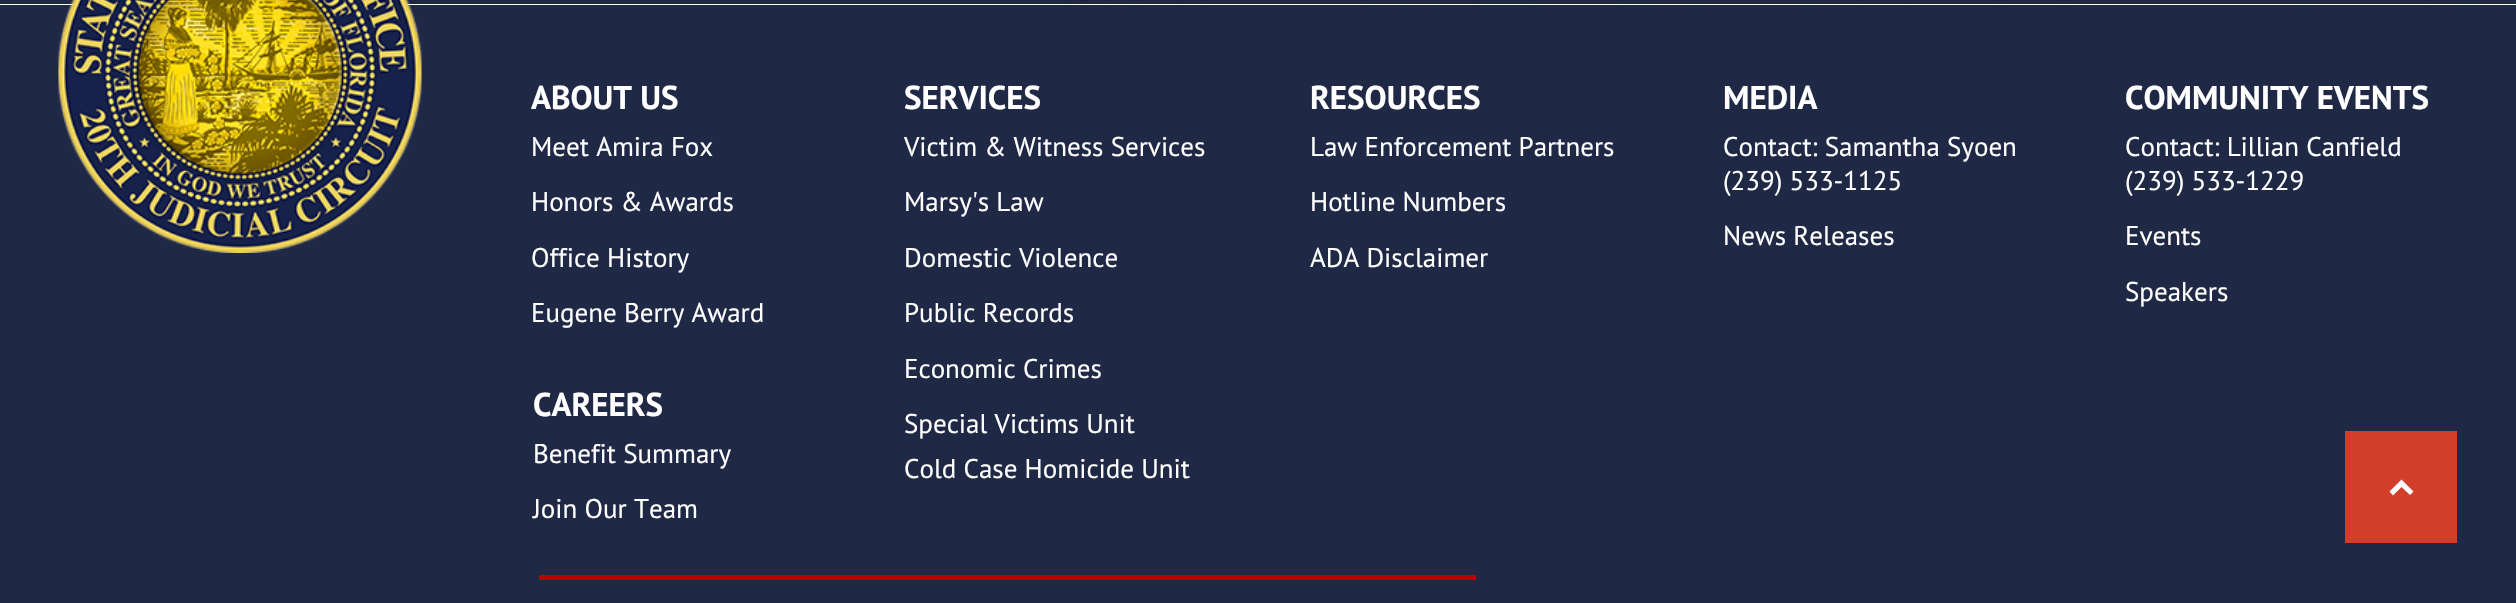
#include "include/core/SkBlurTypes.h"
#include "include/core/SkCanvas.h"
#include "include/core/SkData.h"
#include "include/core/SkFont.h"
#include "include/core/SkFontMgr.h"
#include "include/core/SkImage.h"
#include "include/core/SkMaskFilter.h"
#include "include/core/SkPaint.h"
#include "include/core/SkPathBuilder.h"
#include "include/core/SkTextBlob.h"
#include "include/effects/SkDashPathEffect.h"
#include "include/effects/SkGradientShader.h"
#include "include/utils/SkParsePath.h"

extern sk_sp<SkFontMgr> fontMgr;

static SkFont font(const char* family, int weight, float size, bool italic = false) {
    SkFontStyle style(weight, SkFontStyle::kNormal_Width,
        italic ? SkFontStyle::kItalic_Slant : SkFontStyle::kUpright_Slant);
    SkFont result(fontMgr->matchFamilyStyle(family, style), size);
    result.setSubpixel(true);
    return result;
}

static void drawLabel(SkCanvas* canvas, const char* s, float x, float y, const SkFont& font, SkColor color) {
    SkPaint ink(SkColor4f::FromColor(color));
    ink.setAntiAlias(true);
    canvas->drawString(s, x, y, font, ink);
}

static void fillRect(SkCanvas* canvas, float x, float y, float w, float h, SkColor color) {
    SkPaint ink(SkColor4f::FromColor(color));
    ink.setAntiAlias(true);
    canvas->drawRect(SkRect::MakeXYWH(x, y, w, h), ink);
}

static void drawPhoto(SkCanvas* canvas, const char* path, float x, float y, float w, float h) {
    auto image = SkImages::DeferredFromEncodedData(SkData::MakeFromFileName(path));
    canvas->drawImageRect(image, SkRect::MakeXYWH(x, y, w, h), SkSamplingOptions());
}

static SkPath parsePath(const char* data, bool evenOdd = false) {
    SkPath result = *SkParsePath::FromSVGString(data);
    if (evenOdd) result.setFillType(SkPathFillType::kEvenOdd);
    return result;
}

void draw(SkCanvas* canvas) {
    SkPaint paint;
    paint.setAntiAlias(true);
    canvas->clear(0xFFFFFFFF);
    drawPhoto(canvas, "assets/img1.png", 0, 0, 2516, 4);
    fillRect(canvas, 0, 5, 2516, 598, 0xFF1F2845);
    drawPhoto(canvas, "assets/img2.png", 58, 0, 364, 253);
    SkFont font1 = font("PT Sans", 700, 33);
    drawLabel(canvas, "ABOUT US", 531, 109, font1, 0xFFFFFFFF);
    SkFont font2 = font("PT Sans", 400, 27);
    drawLabel(canvas, "Meet Amira Fox", 531, 156, font2, 0xFFFFFFFF);
    drawLabel(canvas, "Honors & Awards", 531, 211, font2, 0xFFFFFFFF);
    drawLabel(canvas, "Office History", 531, 267, font2, 0xFFFFFFFF);
    drawLabel(canvas, "Eugene Berry Award", 531, 322, font2, 0xFFFFFFFF);
    drawLabel(canvas, "CAREERS", 533, 416, font1, 0xFFFFFFFF);
    drawLabel(canvas, "Benefit Summary", 533, 463, font2, 0xFFFFFFFF);
    drawLabel(canvas, "Join Our Team", 533, 518, font2, 0xFFFFFFFF);
    drawLabel(canvas, "SERVICES", 904, 109, font1, 0xFFFFFFFF);
    drawLabel(canvas, "Victim & Witness Services", 904, 156, font2, 0xFFFFFFFF);
    drawLabel(canvas, "Marsy's Law", 904, 211, font2, 0xFFFFFFFF);
    drawLabel(canvas, "Domestic Violence", 904, 267, font2, 0xFFFFFFFF);
    drawLabel(canvas, "Public Records", 904, 322, font2, 0xFFFFFFFF);
    drawLabel(canvas, "Economic Crimes", 904, 378, font2, 0xFFFFFFFF);
    drawLabel(canvas, "Special Victims Unit", 904, 433, font2, 0xFFFFFFFF);
    drawLabel(canvas, "Cold Case Homicide Unit", 904, 478, font2, 0xFFFFFFFF);
    drawLabel(canvas, "RESOURCES", 1310, 109, font1, 0xFFFFFFFF);
    drawLabel(canvas, "Law Enforcement Partners", 1310, 156, font2, 0xFFFFFFFF);
    drawLabel(canvas, "Hotline Numbers", 1310, 211, font2, 0xFFFFFFFF);
    drawLabel(canvas, "ADA Disclaimer", 1310, 267, font2, 0xFFFFFFFF);
    drawLabel(canvas, "MEDIA", 1723, 109, font1, 0xFFFFFFFF);
    drawLabel(canvas, "Contact: Samantha Syoen", 1723, 156, font2, 0xFFFFFFFF);
    drawLabel(canvas, "(239) 533-1125", 1723, 190, font2, 0xFFFFFFFF);
    drawLabel(canvas, "News Releases", 1723, 245, font2, 0xFFFFFFFF);
    drawLabel(canvas, "COMMUNITY EVENTS", 2125, 109, font1, 0xFFFFFFFF);
    drawLabel(canvas, "Contact: Lillian Canfield", 2125, 156, font2, 0xFFFFFFFF);
    drawLabel(canvas, "(239) 533-1229", 2125, 190, font2, 0xFFFFFFFF);
    drawLabel(canvas, "Events", 2125, 245, font2, 0xFFFFFFFF);
    drawLabel(canvas, "Speakers", 2125, 301, font2, 0xFFFFFFFF);
    fillRect(canvas, 539, 575, 937, 5, 0xFFBC0000);
    fillRect(canvas, 2345, 431, 112, 112, 0xFFD23E2A);
    paint.setColor(0xFFFFFFFF);
    canvas->drawPath(parsePath("M2401.5 479.5L2413.5 491.5L2410 495L2401.5 487L2393 495.5L2389.5 491.5Z"), paint);
}
